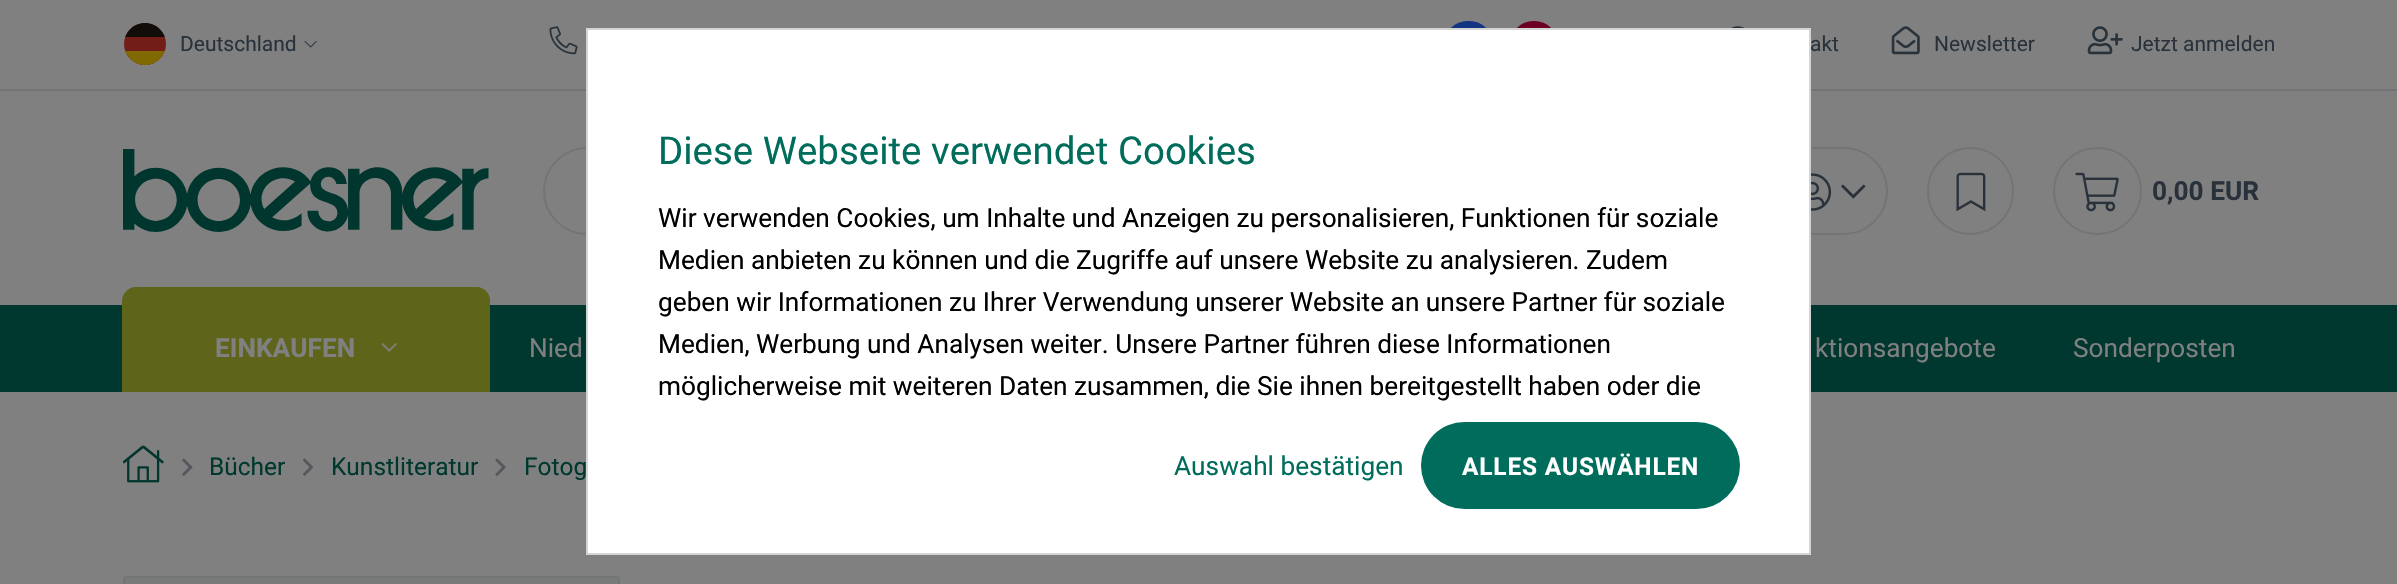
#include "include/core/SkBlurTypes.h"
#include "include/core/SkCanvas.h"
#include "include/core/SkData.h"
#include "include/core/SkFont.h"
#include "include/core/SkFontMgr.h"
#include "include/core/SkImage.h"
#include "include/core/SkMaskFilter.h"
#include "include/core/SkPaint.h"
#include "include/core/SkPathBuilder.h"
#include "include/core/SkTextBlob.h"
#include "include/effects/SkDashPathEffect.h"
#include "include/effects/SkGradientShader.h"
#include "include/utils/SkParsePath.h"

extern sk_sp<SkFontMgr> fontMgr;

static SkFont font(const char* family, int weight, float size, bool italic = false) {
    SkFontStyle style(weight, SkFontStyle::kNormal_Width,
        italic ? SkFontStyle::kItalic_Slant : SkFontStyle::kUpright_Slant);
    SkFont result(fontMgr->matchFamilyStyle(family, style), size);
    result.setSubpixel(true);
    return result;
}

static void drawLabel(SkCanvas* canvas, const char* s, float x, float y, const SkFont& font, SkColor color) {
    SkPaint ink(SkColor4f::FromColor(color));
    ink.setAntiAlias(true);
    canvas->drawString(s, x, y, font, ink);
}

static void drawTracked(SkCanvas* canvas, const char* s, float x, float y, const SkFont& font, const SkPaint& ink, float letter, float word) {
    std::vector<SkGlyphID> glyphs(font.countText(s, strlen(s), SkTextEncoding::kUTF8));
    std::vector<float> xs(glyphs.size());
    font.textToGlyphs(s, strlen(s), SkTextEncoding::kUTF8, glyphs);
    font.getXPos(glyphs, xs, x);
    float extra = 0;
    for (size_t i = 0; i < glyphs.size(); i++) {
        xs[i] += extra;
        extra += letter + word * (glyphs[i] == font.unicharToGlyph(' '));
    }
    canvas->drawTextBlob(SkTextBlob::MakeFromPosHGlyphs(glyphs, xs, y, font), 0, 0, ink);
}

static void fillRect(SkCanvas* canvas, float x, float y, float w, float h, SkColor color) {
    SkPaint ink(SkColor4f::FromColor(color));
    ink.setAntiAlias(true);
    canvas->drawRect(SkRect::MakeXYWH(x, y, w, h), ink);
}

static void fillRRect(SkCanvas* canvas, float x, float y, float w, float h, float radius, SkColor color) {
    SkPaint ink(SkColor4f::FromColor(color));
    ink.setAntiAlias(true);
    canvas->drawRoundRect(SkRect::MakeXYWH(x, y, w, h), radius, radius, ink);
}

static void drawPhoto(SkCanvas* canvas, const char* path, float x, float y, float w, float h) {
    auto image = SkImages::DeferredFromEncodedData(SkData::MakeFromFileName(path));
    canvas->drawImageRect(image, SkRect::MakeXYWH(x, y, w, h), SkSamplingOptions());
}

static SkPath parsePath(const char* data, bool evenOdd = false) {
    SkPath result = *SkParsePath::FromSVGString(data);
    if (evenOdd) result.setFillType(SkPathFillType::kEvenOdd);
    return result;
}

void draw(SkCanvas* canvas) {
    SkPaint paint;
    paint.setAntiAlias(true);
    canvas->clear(0xFF808080);
    fillRect(canvas, 0, 89, 2397, 2, 0xFF737475);
    paint.setColor(0xFF731D17);
    canvas->drawCircle(145, 44, 21, paint);
    canvas->save();
    canvas->clipPath(parsePath("M145 23C156.5 23 166 32.5 166 44C166 55.5 156.5 65 145 65C133.5 65 124 55.5 124 44C124 32.5 133.5 23 145 23Z"), true);
    fillRect(canvas, 125, 23, 40, 14, 0xFF110E09);
    fillRect(canvas, 125, 51, 40, 14, 0xFF806900);
    canvas->restore();
    SkFont font1 = font("Roboto", 400, 21);
    drawLabel(canvas, "Deutschland", 180, 51, font1, 0xFF29323B);
    drawPhoto(canvas, "assets/img1.png", 304, 41, 13, 7);
    drawPhoto(canvas, "assets/img2.png", 549, 26, 29, 29);
    fillRRect(canvas, 1444, 21, 49, 47, 23.5f, 0xFF113580);
    fillRRect(canvas, 1510, 21, 48, 47, 23.5f, 0xFF6C0023);
    drawPhoto(canvas, "assets/img3.png", 1731, 26, 14, 2);
    drawLabel(canvas, "akt", 1810, 51, font1, 0xFF29323B);
    drawPhoto(canvas, "assets/img4.png", 1891, 26, 29, 29);
    drawLabel(canvas, "Newsletter", 1934, 51, font1, 0xFF29323B);
    drawPhoto(canvas, "assets/img5.png", 2087, 26, 36, 29);
    drawLabel(canvas, "Jetzt anmelden", 2131, 51, font1, 0xFF29323B);
    drawPhoto(canvas, "assets/img6.png", 123, 149, 366, 83);
    paint.setStroke(true);
    paint.setStrokeWidth(2);
    paint.setColor(0xFF737475);
    canvas->drawRoundRect(SkRect::MakeXYWH(544, 148, 995, 86), 43, 43, paint);
    canvas->drawRoundRect(SkRect::MakeXYWH(1772, 148, 115, 86), 43, 43, paint);
    drawPhoto(canvas, "assets/img7.png", 1811, 173, 21, 38);
    drawPhoto(canvas, "assets/img8.png", 1841, 184, 25, 15);
    canvas->drawRoundRect(SkRect::MakeXYWH(1928, 148, 85, 86), 42.5f, 42.5f, paint);
    drawPhoto(canvas, "assets/img9.png", 1956, 172, 30, 40);
    canvas->drawRoundRect(SkRect::MakeXYWH(2054, 148, 87, 86), 43, 43, paint);
    drawPhoto(canvas, "assets/img10.png", 2075, 172, 44, 40);
    SkFont font2 = font("Roboto", 700, 26.25f);
    drawLabel(canvas, "0,00 EUR", 2152, 200, font2, 0xFF29323B);
    fillRect(canvas, 0, 305, 2397, 87, 0xFF00372E);
    paint.setStroke(false);
    paint.setColor(0xFF5E6419);
    canvas->drawPath(parsePath("M137 287H476C483.5 287 490 293.5 490 301V392H123V301C123 293.5 129.5 287 137 287Z"), paint);
    canvas->drawPath(parsePath("M136 287H476C484 287 490 293 490 301V392H122V301C122 293 129 287 136 287ZM136 289H476C483 289 488 294 488 301V392H124V301C124 294 130 289 136 289Z", true), paint);
    drawLabel(canvas, "EINKAUFEN", 215, 357, font2, 0xFF808080);
    drawPhoto(canvas, "assets/img11.png", 381, 343, 16, 9);
    SkFont font3 = font("Roboto", 400, 26.25f);
    drawLabel(canvas, "Nied", 529, 357, font3, 0xFF808080);
    drawLabel(canvas, "ktionsangebote", 1815, 357, font3, 0xFF808080);
    drawLabel(canvas, "Sonderposten", 2073, 357, font3, 0xFF808080);
    drawPhoto(canvas, "assets/img12.png", 123, 445, 41, 38);
    drawPhoto(canvas, "assets/img13.png", 182, 458, 11, 18);
    SkFont font4 = font("Roboto", 400, 24.5f);
    drawLabel(canvas, "Bücher", 209, 475, font4, 0xFF00372E);
    drawPhoto(canvas, "assets/img14.png", 303, 458, 10, 18);
    drawLabel(canvas, "Kunstliteratur", 331, 475, font4, 0xFF00372E);
    drawPhoto(canvas, "assets/img15.png", 495, 458, 11, 18);
    drawLabel(canvas, "Fotog", 524, 475, font4, 0xFF00372E);
    fillRect(canvas, 123, 576, 497, 8, 0xFF797A7A);
    paint.setStroke(true);
    paint.setColor(0xFF737475);
    canvas->drawRoundRect(SkRect::MakeXYWH(124, 577, 495, 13), 4, 4, paint);
    paint.setStroke(false);
    paint.setColor(0xFFFFFFFF);
    canvas->drawRect(SkRect::MakeXYWH(587, 29, 1223, 525), paint);
    paint.setStroke(true);
    paint.setColor(0xFFD4D4D4);
    canvas->drawRect(SkRect::MakeXYWH(587, 29, 1223, 525), paint);
    SkFont font5 = font("Roboto", 400, 38.5f);
    drawLabel(canvas, "Diese Webseite verwendet Cookies", 658, 164, font5, 0xFF006D5C);
    drawLabel(canvas, "Wir verwenden Cookies, um Inhalte und Anzeigen zu personalisieren, Funktionen für soziale", 658, 227, font3, 0xFF000000);
    drawLabel(canvas, "Medien anbieten zu können und die Zugriffe auf unsere Website zu analysieren. Zudem", 658, 269, font3, 0xFF000000);
    drawLabel(canvas, "geben wir Informationen zu Ihrer Verwendung unserer Website an unsere Partner für soziale", 658, 311, font3, 0xFF000000);
    drawLabel(canvas, "Medien, Werbung und Analysen weiter. Unsere Partner führen diese Informationen", 658, 353, font3, 0xFF000000);
    drawLabel(canvas, "möglicherweise mit weiteren Daten zusammen, die Sie ihnen bereitgestellt haben oder die", 658, 395, font3, 0xFF000000);
    drawLabel(canvas, "Auswahl bestätigen", 1174, 475, font3, 0xFF006D5C);
    fillRRect(canvas, 1421, 422, 319, 87, 43.5f, 0xFF006D5C);
    SkFont font6 = font("Roboto", 700, 24.5f);
    paint.setStroke(false);
    paint.setColor(0xFFFFFFFF);
    drawTracked(canvas, "ALLES AUSWÄHLEN", 1462, 475, font6, paint, 0.8f, 0);
}
